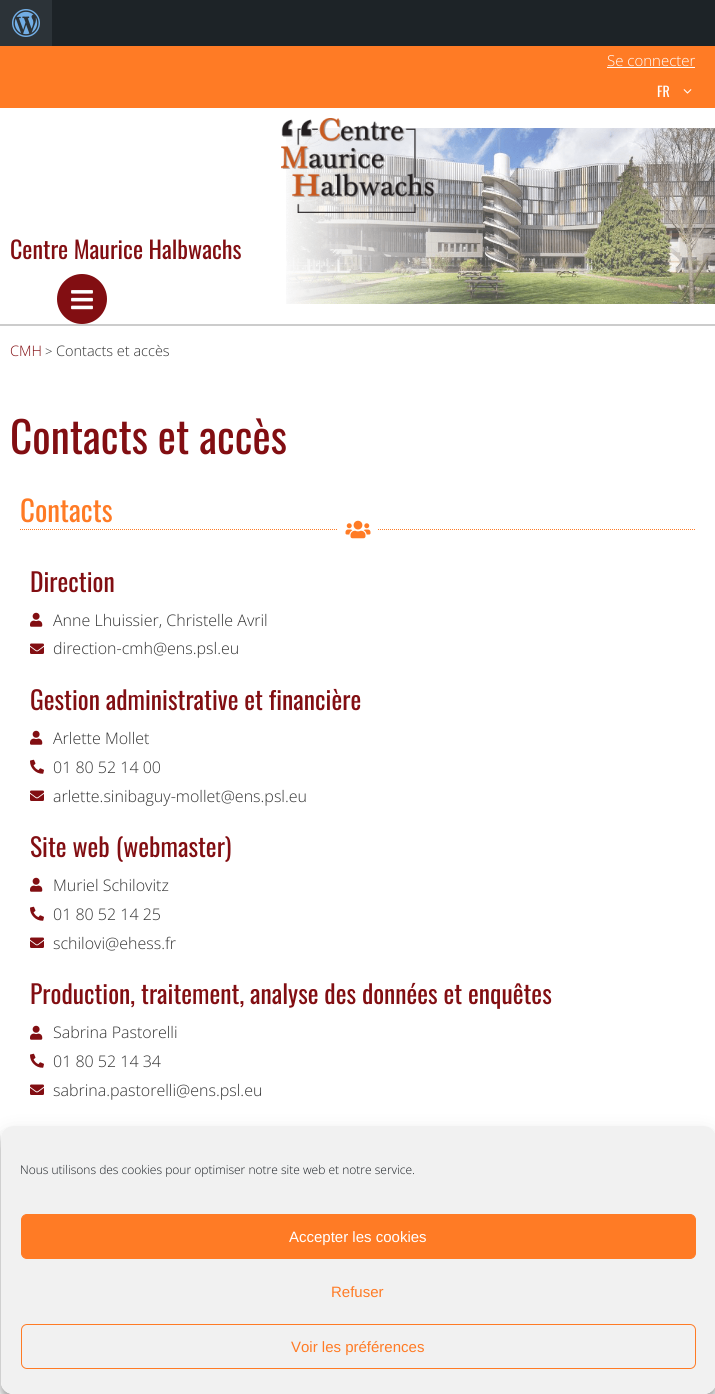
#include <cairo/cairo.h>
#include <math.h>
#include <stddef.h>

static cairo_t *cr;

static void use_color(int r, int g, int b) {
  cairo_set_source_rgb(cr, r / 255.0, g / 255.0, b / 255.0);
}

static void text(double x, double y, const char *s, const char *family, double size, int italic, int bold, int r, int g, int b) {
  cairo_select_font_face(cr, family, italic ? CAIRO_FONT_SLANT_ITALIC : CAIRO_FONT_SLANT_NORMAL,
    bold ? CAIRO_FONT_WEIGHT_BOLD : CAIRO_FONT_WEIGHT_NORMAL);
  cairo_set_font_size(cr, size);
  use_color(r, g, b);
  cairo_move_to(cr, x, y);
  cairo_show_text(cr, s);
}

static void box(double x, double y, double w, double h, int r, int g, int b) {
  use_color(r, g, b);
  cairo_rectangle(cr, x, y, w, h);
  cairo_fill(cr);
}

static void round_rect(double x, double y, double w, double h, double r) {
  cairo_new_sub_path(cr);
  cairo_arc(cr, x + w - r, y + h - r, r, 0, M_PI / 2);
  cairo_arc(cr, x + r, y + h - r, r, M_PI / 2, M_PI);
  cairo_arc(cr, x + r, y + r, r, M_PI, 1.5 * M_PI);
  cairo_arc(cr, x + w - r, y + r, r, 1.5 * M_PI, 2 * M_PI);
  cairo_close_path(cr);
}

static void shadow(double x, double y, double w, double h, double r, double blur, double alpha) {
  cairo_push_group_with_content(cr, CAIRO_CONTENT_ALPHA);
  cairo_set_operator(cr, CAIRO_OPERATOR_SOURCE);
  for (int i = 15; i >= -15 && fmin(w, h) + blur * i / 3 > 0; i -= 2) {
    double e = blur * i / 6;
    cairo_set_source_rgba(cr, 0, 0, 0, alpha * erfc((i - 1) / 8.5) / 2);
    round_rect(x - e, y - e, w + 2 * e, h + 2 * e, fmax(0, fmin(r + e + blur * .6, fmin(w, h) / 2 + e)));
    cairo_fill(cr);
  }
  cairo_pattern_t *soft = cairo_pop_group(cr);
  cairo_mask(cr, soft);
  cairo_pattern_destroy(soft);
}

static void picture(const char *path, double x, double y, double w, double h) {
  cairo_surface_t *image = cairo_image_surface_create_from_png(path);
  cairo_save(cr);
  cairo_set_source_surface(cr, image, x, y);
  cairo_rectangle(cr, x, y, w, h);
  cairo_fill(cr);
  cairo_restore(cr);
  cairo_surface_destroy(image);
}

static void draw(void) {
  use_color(255, 255, 255);
  cairo_paint(cr);
  box(52, 0, 663, 46, 29, 35, 39);
  box(0, 0, 52, 46, 44, 51, 56);
  picture("img_01.png", 12, 9, 28, 28);
  box(0, 46, 715, 62, 255, 123, 37);
  box(607, 67, 88, 1, 255, 255, 255);
  picture("img_02.png", 683, 89, 9, 5);
  picture("img_05.png", 286, 128, 429, 176);
  picture("img_03.png", 281, 118, 154, 95);
  use_color(130, 14, 18);
  cairo_arc(cr, 82, 299, 25, 0, 2 * M_PI);
  cairo_fill(cr);
  picture("img_04.png", 71, 290, 22, 20);
  box(0, 324, 715, 2, 204, 204, 204);
  cairo_new_path(cr);
  cairo_move_to(cr, 20, 529.5);
  cairo_line_to(cr, 338, 529.5);
  use_color(255, 123, 37);
  cairo_set_line_width(cr, 1);
  cairo_set_dash(cr, (double[]){1, 1}, 2, 0);
  cairo_stroke(cr);
  picture("img_06.png", 345, 520, 26, 19);
  cairo_new_path(cr);
  cairo_move_to(cr, 378, 529.5);
  cairo_line_to(cr, 695, 529.5);
  cairo_stroke(cr);
  picture("img_07.png", 30, 612, 13, 15);
  picture("img_08.png", 30, 643, 14, 11);
  picture("img_07.png", 30, 730, 13, 15);
  picture("img_09.png", 30, 759, 14, 15);
  picture("img_08.png", 30, 790, 14, 11);
  picture("img_07.png", 30, 877, 13, 15);
  picture("img_09.png", 30, 906, 14, 15);
  picture("img_08.png", 30, 937, 14, 11);
  picture("img_07.png", 30, 1025, 13, 15);
  picture("img_09.png", 30, 1053, 14, 15);
  picture("img_08.png", 30, 1084, 14, 11);
  cairo_save(cr);
  cairo_set_fill_rule(cr, CAIRO_FILL_RULE_EVEN_ODD);
  cairo_new_path(cr);
  cairo_move_to(cr, 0, 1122);
  cairo_line_to(cr, 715, 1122);
  cairo_line_to(cr, 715, 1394);
  cairo_line_to(cr, 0, 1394);
  cairo_close_path(cr);
  cairo_move_to(cr, 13, 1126);
  cairo_line_to(cr, 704, 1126);
  cairo_curve_to(cr, 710.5, 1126, 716, 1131.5, 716, 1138);
  cairo_line_to(cr, 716, 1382);
  cairo_curve_to(cr, 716, 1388.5, 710.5, 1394, 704, 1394);
  cairo_line_to(cr, 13, 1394);
  cairo_curve_to(cr, 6.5, 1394, 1, 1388.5, 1, 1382);
  cairo_line_to(cr, 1, 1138);
  cairo_curve_to(cr, 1, 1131.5, 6.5, 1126, 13, 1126);
  cairo_close_path(cr);
  cairo_clip(cr);
  use_color(0, 0, 0);
  shadow(1, 1132, 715, 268, 12, 3, 0.23);
  cairo_restore(cr);
  cairo_save(cr);
  cairo_set_fill_rule(cr, CAIRO_FILL_RULE_EVEN_ODD);
  cairo_new_path(cr);
  cairo_move_to(cr, 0, 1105);
  cairo_line_to(cr, 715, 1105);
  cairo_line_to(cr, 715, 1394);
  cairo_line_to(cr, 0, 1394);
  cairo_close_path(cr);
  cairo_move_to(cr, 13, 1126);
  cairo_line_to(cr, 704, 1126);
  cairo_curve_to(cr, 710.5, 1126, 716, 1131.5, 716, 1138);
  cairo_line_to(cr, 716, 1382);
  cairo_curve_to(cr, 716, 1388.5, 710.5, 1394, 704, 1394);
  cairo_line_to(cr, 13, 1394);
  cairo_curve_to(cr, 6.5, 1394, 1, 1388.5, 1, 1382);
  cairo_line_to(cr, 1, 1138);
  cairo_curve_to(cr, 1, 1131.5, 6.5, 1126, 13, 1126);
  cairo_close_path(cr);
  cairo_clip(cr);
  use_color(0, 0, 0);
  shadow(1, 1136, 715, 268, 12, 10, 0.19);
  cairo_restore(cr);
  use_color(241, 241, 241);
  round_rect(1, 1126, 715, 268, 12);
  cairo_fill(cr);
  use_color(255, 123, 37);
  round_rect(21.5, 1214.5, 674, 44, 5.5);
  cairo_fill_preserve(cr);
  cairo_set_dash(cr, NULL, 0, 0);
  cairo_stroke(cr);
  round_rect(21.5, 1324.5, 674, 44, 5.5);
  cairo_stroke(cr);
  text(607, 66, "Se connecter", "Open Sans Light", 15, 0, 0, 255, 255, 255);
  text(657, 97, "FR", "Oswald", 14, 0, 0, 255, 255, 255);
  text(10, 259, "Centre Maurice Halbwachs", "Oswald", 24, 0, 0, 130, 14, 18);
  text(10, 356, "CMH", "Open Sans Light", 14.5, 0, 0, 130, 14, 18);
  text(45, 356, ">", "Open Sans Light", 13, 0, 0, 51, 51, 51);
  text(56, 356, "Contacts et accès", "Open Sans Light", 14.5, 0, 0, 51, 51, 51);
  text(10, 454, "Contacts et accès", "Oswald", 43.25, 0, 0, 130, 14, 18);
  text(20, 522, "Contacts", "Oswald", 29, 0, 0, 255, 123, 37);
  text(30, 592, "Direction", "Oswald", 25.6, 0, 0, 130, 14, 18);
  text(53, 626, "Anne Lhuissier, Christelle Avril", "Open Sans Light", 16, 0, 0, 51, 51, 51);
  text(53, 654, "direction-cmh@ens.psl.eu", "Open Sans Light", 16, 0, 0, 51, 51, 51);
  text(30, 710, "Gestion administrative et financière", "Oswald", 25.6, 0, 0, 130, 14, 18);
  text(53, 744, "Arlette Mollet", "Open Sans Light", 16, 0, 0, 51, 51, 51);
  text(53, 773, "01 80 52 14 00", "Open Sans Light", 16, 0, 0, 51, 51, 51);
  text(53, 802, "arlette.sinibaguy-mollet@ens.psl.eu", "Open Sans Light", 16, 0, 0, 51, 51, 51);
  text(30, 857, "Site web (webmaster)", "Oswald", 25.6, 0, 0, 130, 14, 18);
  text(53, 891, "Muriel Schilovitz", "Open Sans Light", 16, 0, 0, 51, 51, 51);
  text(53, 920, "01 80 52 14 25", "Open Sans Light", 16, 0, 0, 51, 51, 51);
  text(53, 949, "schilovi@ehess.fr", "Open Sans Light", 16, 0, 0, 51, 51, 51);
  text(30, 1004, "Production, traitement, analyse des données et enquêtes", "Oswald", 25.6, 0, 0, 130, 14, 18);
  text(53, 1038, "Sabrina Pastorelli", "Open Sans Light", 16, 0, 0, 51, 51, 51);
  text(53, 1067, "01 80 52 14 34", "Open Sans Light", 16, 0, 0, 51, 51, 51);
  text(53, 1096, "sabrina.pastorelli@ens.psl.eu", "Open Sans Light", 16, 0, 0, 51, 51, 51);
  text(20, 1174, "Nous utilisons des cookies pour optimiser notre site web et notre service.", "Open Sans Light", 12, 0, 0, 25, 30, 35);
  text(289, 1242, "Accepter les cookies", "Liberation Sans", 15, 0, 0, 255, 255, 255);
  text(331, 1297, "Refuser", "Liberation Sans", 15, 0, 0, 255, 123, 37);
  text(291, 1352, "Voir les préférences", "Liberation Sans", 15, 0, 0, 255, 123, 37);
}

int main(void) {
  cairo_surface_t *surface = cairo_image_surface_create(CAIRO_FORMAT_RGB24, 715, 1394);
  cr = cairo_create(surface);
  cairo_font_options_t *options = cairo_font_options_create();
  cairo_font_options_set_hint_metrics(options, CAIRO_HINT_METRICS_OFF);
  cairo_font_options_set_hint_style(options, CAIRO_HINT_STYLE_NONE);
  cairo_set_font_options(cr, options);
  cairo_set_miter_limit(cr, 4);
  draw();
  cairo_surface_write_to_png(surface, "out.png");
  cairo_font_options_destroy(options);
  cairo_destroy(cr);
  cairo_surface_destroy(surface);
  return 0;
}
